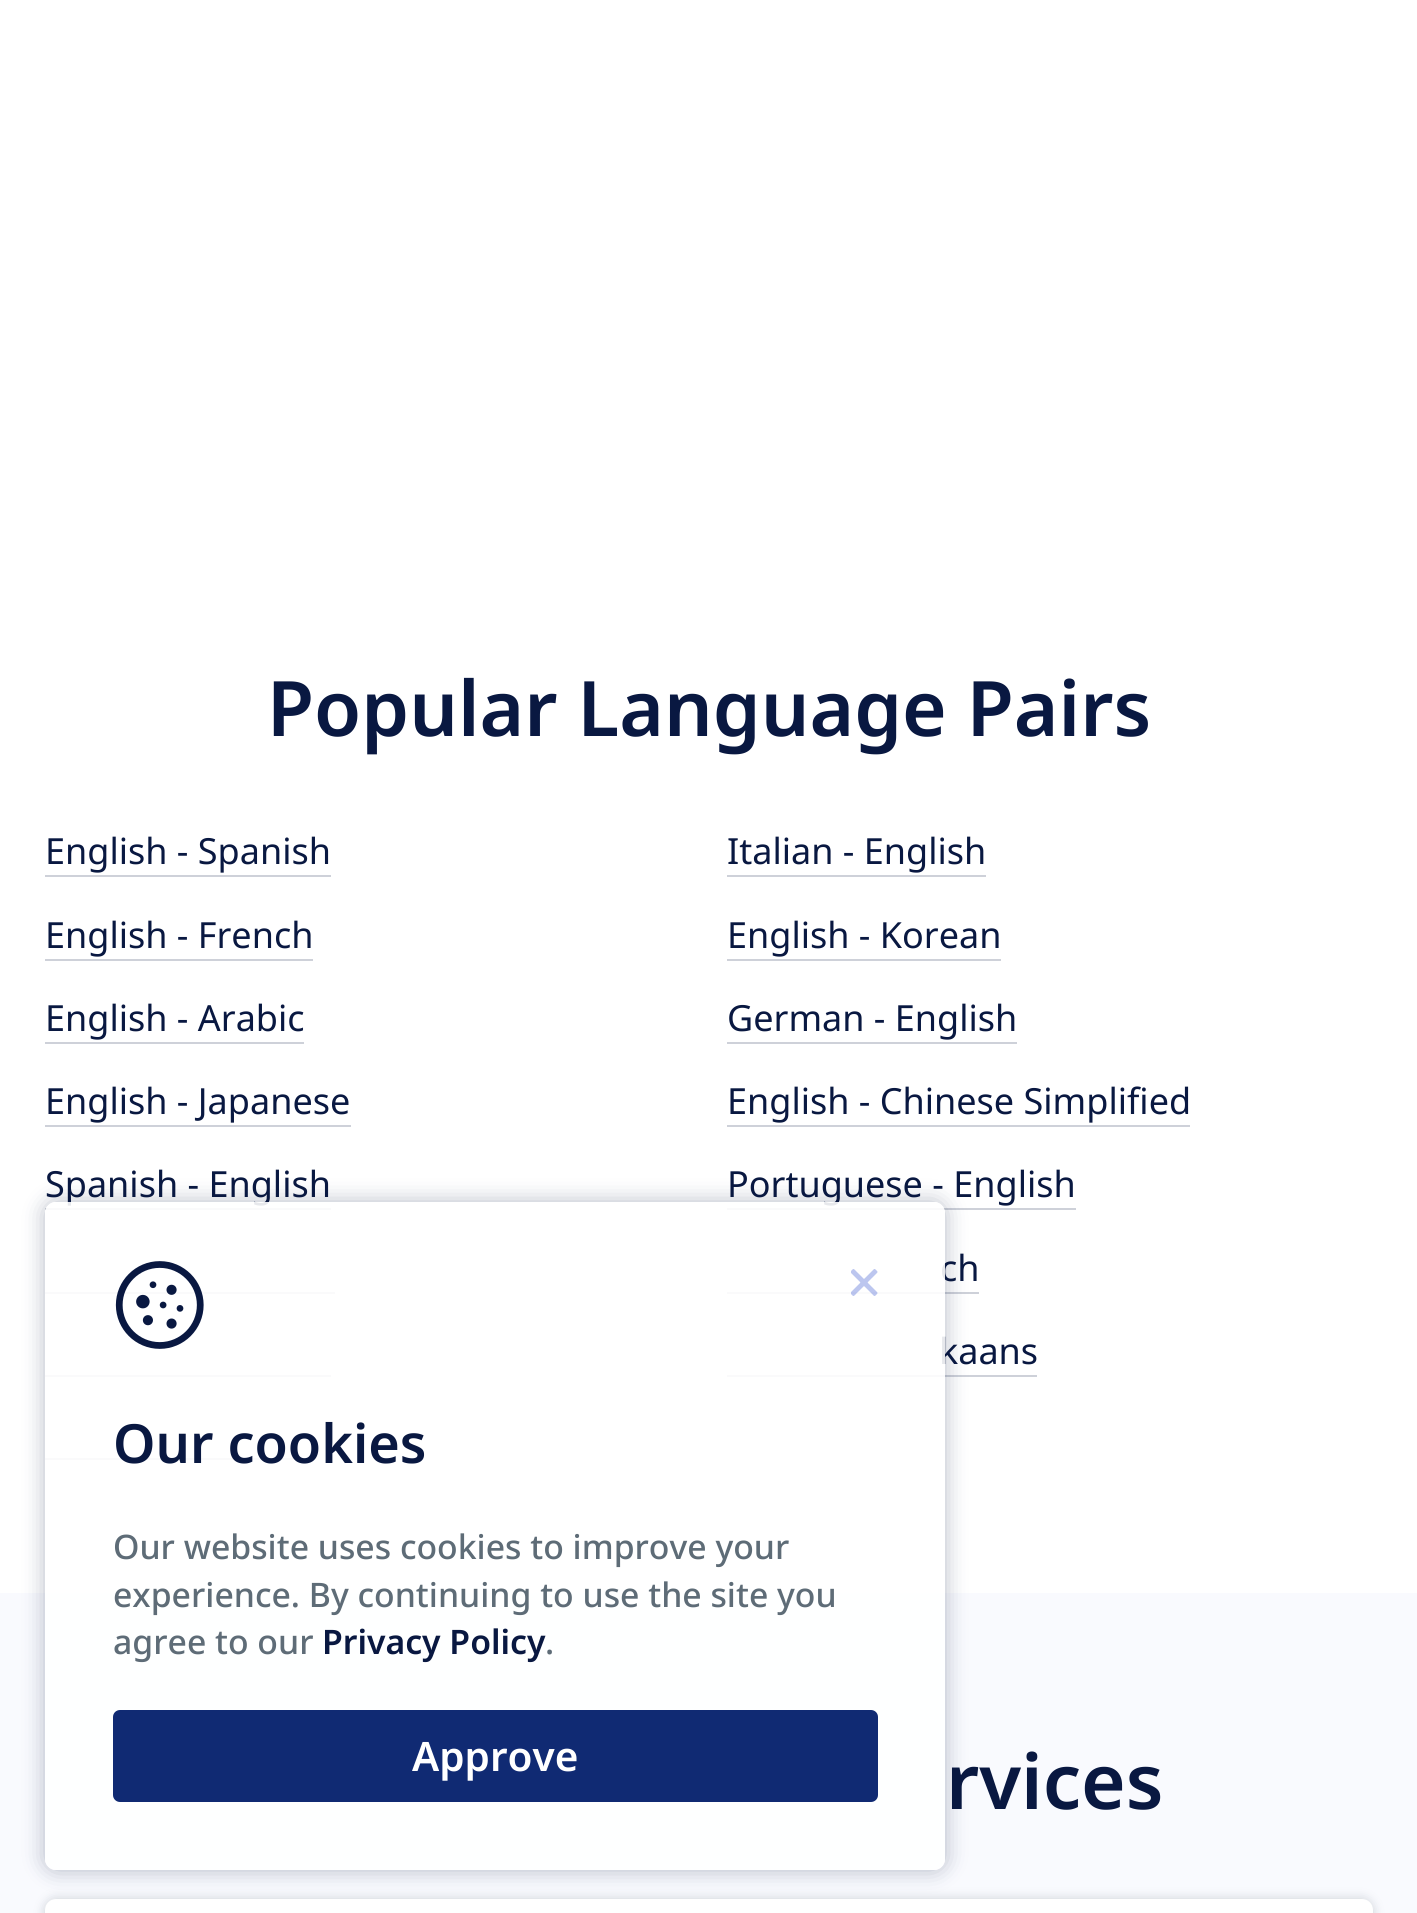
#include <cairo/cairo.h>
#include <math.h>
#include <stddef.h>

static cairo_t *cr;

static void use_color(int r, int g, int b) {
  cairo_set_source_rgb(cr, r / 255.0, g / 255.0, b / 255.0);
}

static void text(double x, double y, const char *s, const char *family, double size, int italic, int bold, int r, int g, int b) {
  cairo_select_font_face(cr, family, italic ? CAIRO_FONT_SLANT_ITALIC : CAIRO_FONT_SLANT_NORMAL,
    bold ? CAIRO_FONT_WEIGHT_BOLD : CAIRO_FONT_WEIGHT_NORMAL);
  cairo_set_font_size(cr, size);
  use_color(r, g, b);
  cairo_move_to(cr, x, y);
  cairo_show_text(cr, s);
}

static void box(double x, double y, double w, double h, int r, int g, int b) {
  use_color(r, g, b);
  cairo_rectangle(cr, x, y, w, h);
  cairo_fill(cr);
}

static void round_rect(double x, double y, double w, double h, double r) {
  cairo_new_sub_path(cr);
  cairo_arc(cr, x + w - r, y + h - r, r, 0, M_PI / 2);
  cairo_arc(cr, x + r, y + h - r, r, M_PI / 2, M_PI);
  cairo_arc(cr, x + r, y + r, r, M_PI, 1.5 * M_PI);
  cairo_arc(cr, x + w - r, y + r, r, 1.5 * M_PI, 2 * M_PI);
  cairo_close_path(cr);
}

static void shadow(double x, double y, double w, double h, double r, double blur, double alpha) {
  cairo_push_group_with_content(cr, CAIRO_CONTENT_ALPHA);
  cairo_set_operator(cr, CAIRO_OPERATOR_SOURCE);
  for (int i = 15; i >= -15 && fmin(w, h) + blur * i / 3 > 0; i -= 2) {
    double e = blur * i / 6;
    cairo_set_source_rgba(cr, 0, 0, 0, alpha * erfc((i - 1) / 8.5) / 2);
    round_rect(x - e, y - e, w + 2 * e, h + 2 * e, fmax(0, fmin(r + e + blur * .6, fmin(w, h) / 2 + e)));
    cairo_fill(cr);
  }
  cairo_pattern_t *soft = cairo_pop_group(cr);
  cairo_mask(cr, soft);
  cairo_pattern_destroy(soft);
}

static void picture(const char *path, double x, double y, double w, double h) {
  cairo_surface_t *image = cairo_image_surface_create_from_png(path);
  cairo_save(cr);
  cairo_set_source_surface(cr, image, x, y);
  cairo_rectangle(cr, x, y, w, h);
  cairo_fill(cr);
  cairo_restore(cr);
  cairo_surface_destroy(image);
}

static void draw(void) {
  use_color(255, 255, 255);
  cairo_paint(cr);
  box(45, 875, 286, 2, 206, 209, 217);
  box(727, 875, 259, 2, 206, 209, 217);
  box(45, 959, 268, 2, 206, 209, 217);
  box(727, 959, 274, 2, 206, 209, 217);
  box(45, 1042, 259, 2, 206, 209, 217);
  box(727, 1042, 290, 2, 206, 209, 217);
  box(45, 1125, 306, 2, 206, 209, 217);
  box(727, 1125, 463, 2, 206, 209, 217);
  box(45, 1208, 286, 2, 206, 209, 217);
  box(727, 1208, 349, 2, 206, 209, 217);
  box(727, 1292, 252, 2, 206, 209, 217);
  box(45, 1292, 290, 2, 206, 209, 217);
  box(727, 1375, 310, 2, 206, 209, 217);
  box(45, 1375, 286, 2, 206, 209, 217);
  box(45, 1458, 259, 2, 206, 209, 217);
  box(0, 1593, 1417, 320, 249, 250, 254);
  use_color(94, 108, 119);
  shadow(45, 1899, 1328, 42, 11, 5.5, 0.3);
  use_color(255, 255, 255);
  round_rect(45, 1899, 1328, 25, 11);
  cairo_fill(cr);
  cairo_save(cr);
  cairo_set_fill_rule(cr, CAIRO_FILL_RULE_EVEN_ODD);
  cairo_new_path(cr);
  cairo_move_to(cr, 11, 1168);
  cairo_line_to(cr, 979, 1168);
  cairo_line_to(cr, 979, 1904);
  cairo_line_to(cr, 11, 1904);
  cairo_close_path(cr);
  cairo_move_to(cr, 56, 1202);
  cairo_line_to(cr, 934, 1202);
  cairo_curve_to(cr, 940, 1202, 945, 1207, 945, 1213);
  cairo_line_to(cr, 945, 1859);
  cairo_curve_to(cr, 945, 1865, 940, 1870, 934, 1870);
  cairo_line_to(cr, 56, 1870);
  cairo_curve_to(cr, 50, 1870, 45, 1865, 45, 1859);
  cairo_line_to(cr, 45, 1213);
  cairo_curve_to(cr, 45, 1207, 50, 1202, 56, 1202);
  cairo_close_path(cr);
  cairo_clip(cr);
  use_color(9, 24, 65);
  shadow(45, 1202, 900, 668, 11, 11, 0.3);
  cairo_restore(cr);
  text(267, 736, "Popular Language Pairs", "Noto Sans SemiBold", 76.5, 0, 0, 9, 24, 65);
  text(45, 864, "English - Spanish", "Noto Sans", 36, 0, 0, 9, 24, 65);
  text(727, 864, "Italian - English", "Noto Sans", 36, 0, 0, 9, 24, 65);
  text(45, 948, "English - French", "Noto Sans", 36, 0, 0, 9, 24, 65);
  text(727, 948, "English - Korean", "Noto Sans", 36, 0, 0, 9, 24, 65);
  text(45, 1031, "English - Arabic", "Noto Sans", 36, 0, 0, 9, 24, 65);
  text(727, 1031, "German - English", "Noto Sans", 36, 0, 0, 9, 24, 65);
  text(45, 1114, "English - Japanese", "Noto Sans", 36, 0, 0, 9, 24, 65);
  text(727, 1114, "English - Chinese Simplified", "Noto Sans", 36, 0, 0, 9, 24, 65);
  text(45, 1197, "Spanish - English", "Noto Sans", 36, 0, 0, 9, 24, 65);
  text(727, 1197, "Portuguese - English", "Noto Sans", 36, 0, 0, 9, 24, 65);
  text(940, 1281, "ch", "Noto Sans", 36, 0, 0, 9, 24, 65);
  text(939, 1364, "kaans", "Noto Sans", 36, 0, 0, 9, 24, 65);
  text(946, 1809, "rvices", "Noto Sans SemiBold", 76.5, 0, 0, 9, 24, 65);
  cairo_set_source_rgba(cr, 1, 1, 1, 0.9);
  round_rect(45, 1202, 900, 668, 11);
  cairo_fill(cr);
  picture("img_01.png", 115, 1261, 89, 88);
  picture("img_02.png", 851, 1269, 27, 27);
  text(113, 1463, "Our cookies", "Noto Sans SemiBold", 54, 0, 0, 9, 24, 65);
  text(113, 1559, "Our website uses cookies to improve your", "Noto Sans Medium", 33.75, 0, 0, 94, 108, 119);
  text(113, 1607, "experience. By continuing to use the site you", "Noto Sans Medium", 33.75, 0, 0, 94, 108, 119);
  text(113, 1654, "agree to our", "Noto Sans Medium", 33.75, 0, 0, 94, 108, 119);
  text(322, 1654, "Privacy Policy", "Noto Sans SemiBold", 33.75, 0, 0, 9, 24, 65);
  text(545, 1654, ".", "Noto Sans Medium", 33.75, 0, 0, 94, 108, 119);
  use_color(16, 42, 115);
  round_rect(113, 1710, 765, 92, 7);
  cairo_fill(cr);
  text(412, 1771, "Approve", "Noto Sans SemiBold", 40.5, 0, 0, 255, 255, 255);
}

int main(void) {
  cairo_surface_t *surface = cairo_image_surface_create(CAIRO_FORMAT_RGB24, 1417, 1913);
  cr = cairo_create(surface);
  cairo_font_options_t *options = cairo_font_options_create();
  cairo_font_options_set_hint_metrics(options, CAIRO_HINT_METRICS_OFF);
  cairo_font_options_set_hint_style(options, CAIRO_HINT_STYLE_NONE);
  cairo_set_font_options(cr, options);
  cairo_set_miter_limit(cr, 4);
  draw();
  cairo_surface_write_to_png(surface, "out.png");
  cairo_font_options_destroy(options);
  cairo_destroy(cr);
  cairo_surface_destroy(surface);
  return 0;
}
